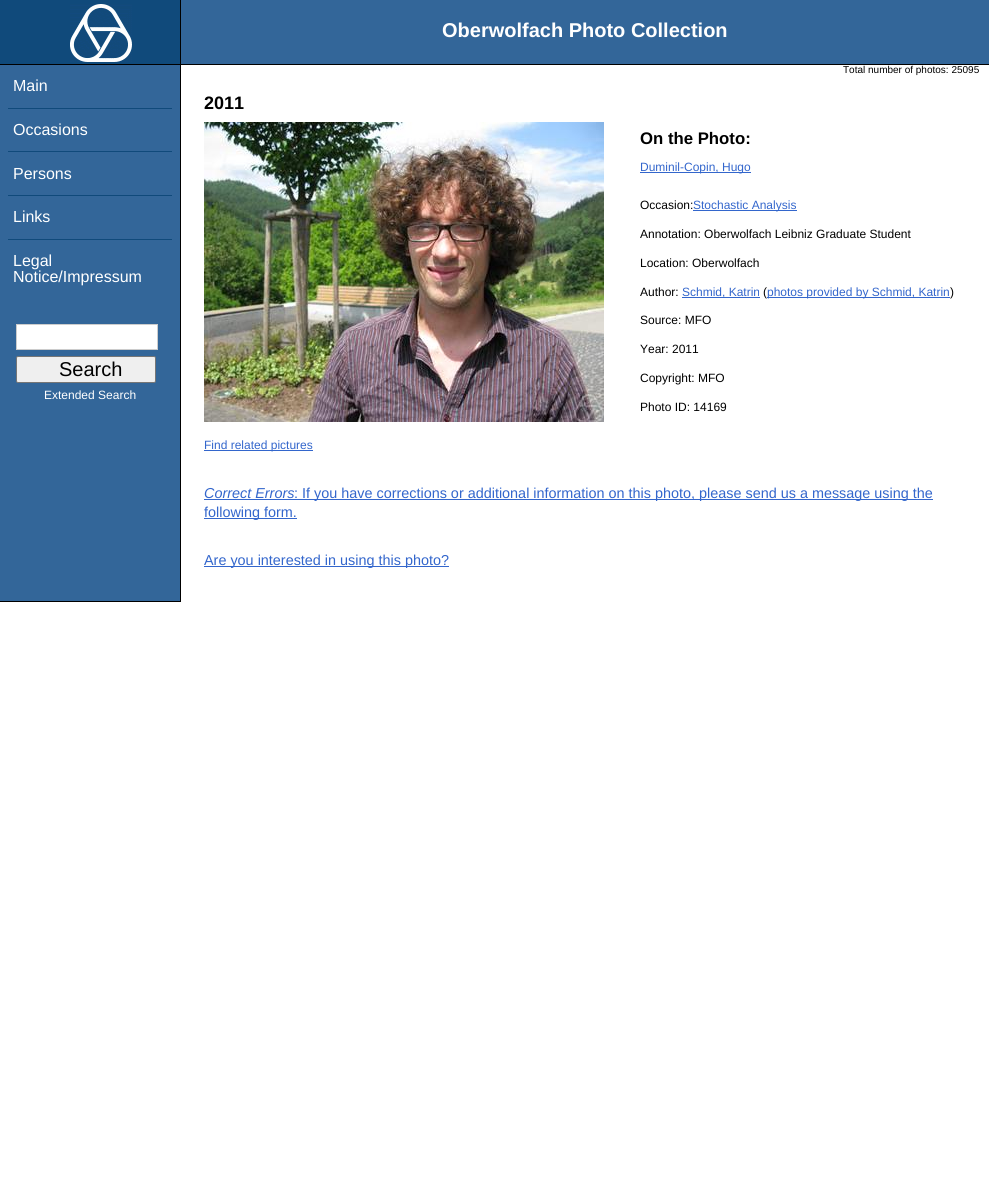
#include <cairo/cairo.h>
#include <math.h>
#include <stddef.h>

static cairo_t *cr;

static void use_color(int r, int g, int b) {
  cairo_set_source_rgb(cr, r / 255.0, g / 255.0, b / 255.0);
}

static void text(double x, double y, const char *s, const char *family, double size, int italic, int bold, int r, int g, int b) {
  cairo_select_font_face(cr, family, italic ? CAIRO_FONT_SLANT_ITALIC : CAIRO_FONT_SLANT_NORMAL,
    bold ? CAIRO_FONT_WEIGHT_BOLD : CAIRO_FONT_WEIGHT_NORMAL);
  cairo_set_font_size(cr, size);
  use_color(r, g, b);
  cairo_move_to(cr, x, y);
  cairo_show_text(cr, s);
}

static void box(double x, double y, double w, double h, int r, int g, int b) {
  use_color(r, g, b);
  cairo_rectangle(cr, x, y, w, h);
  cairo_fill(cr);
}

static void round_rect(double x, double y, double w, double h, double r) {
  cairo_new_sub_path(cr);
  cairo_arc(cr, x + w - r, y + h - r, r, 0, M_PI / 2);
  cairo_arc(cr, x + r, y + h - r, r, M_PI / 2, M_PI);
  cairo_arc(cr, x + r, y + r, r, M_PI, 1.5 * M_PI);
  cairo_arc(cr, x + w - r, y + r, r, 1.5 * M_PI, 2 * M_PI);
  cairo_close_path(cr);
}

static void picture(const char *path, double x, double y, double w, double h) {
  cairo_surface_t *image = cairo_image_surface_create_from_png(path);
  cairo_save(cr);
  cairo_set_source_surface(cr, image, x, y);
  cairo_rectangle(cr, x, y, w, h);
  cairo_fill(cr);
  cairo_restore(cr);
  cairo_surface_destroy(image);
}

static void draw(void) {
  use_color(255, 255, 255);
  cairo_paint(cr);
  box(181, 0, 808, 64, 51, 102, 153);
  box(0, 64, 989, 1, 0, 0, 0);
  box(0, 0, 180, 64, 16, 74, 123);
  box(180, 0, 1, 64, 0, 0, 0);
  picture("img_01.png", 70, 4, 62, 58);
  box(0, 65, 180, 536, 51, 102, 153);
  box(180, 65, 1, 537, 0, 0, 0);
  box(0, 601, 181, 1, 0, 0, 0);
  box(8, 108, 164, 1, 16, 74, 123);
  box(8, 151, 164, 1, 16, 74, 123);
  box(8, 195, 164, 1, 16, 74, 123);
  box(8, 239, 164, 1, 16, 74, 123);
  use_color(255, 255, 255);
  cairo_rectangle(cr, 16.5, 324.5, 141, 25);
  cairo_fill_preserve(cr);
  use_color(204, 204, 204);
  cairo_set_line_width(cr, 1);
  cairo_stroke(cr);
  use_color(239, 239, 239);
  round_rect(16.5, 356.5, 139, 26, 1.5);
  cairo_fill_preserve(cr);
  use_color(118, 118, 118);
  cairo_stroke(cr);
  picture("img_02.png", 204, 122, 400, 300);
  box(640, 172, 111, 1, 51, 102, 204);
  box(693, 210, 104, 1, 51, 102, 204);
  box(682, 297, 78, 1, 51, 102, 204);
  box(204, 450, 109, 1, 51, 102, 204);
  box(204, 499, 729, 1, 51, 102, 204);
  box(204, 518, 93, 1, 51, 102, 204);
  box(204, 566, 245, 1, 51, 102, 204);
  text(442, 37, "Oberwolfach Photo Collection", "Liberation Sans", 20, 0, 1, 255, 255, 255);
  text(843, 73, "Total number of photos: 25095", "Liberation Sans", 10, 0, 0, 0, 0, 0);
  text(13, 91, "Main", "Liberation Sans", 16, 0, 0, 255, 255, 255);
  text(13, 135, "Occasions", "Liberation Sans", 16, 0, 0, 255, 255, 255);
  text(13, 179, "Persons", "Liberation Sans", 16, 0, 0, 255, 255, 255);
  text(13, 222, "Links", "Liberation Sans", 16, 0, 0, 255, 255, 255);
  text(13, 266, "Legal", "Liberation Sans", 16, 0, 0, 255, 255, 255);
  text(13, 282, "Notice/Impressum", "Liberation Sans", 16, 0, 0, 255, 255, 255);
  text(59, 376, "Search", "Liberation Sans", 20, 0, 0, 0, 0, 0);
  text(44, 399, "Extended Search", "Liberation Sans", 12, 0, 0, 255, 255, 255);
  text(204, 109, "2011", "Liberation Sans", 18, 0, 1, 0, 0, 0);
  text(640, 144, "On the Photo:", "Liberation Sans", 16.75, 0, 1, 0, 0, 0);
  text(640, 171, "Duminil-Copin, Hugo", "Liberation Sans", 12, 0, 0, 51, 102, 204);
  text(640, 209, "Occasion:", "Liberation Sans", 12, 0, 0, 0, 0, 0);
  text(693, 209, "Stochastic Analysis", "Liberation Sans", 12, 0, 0, 51, 102, 204);
  text(640, 238, "Annotation: Oberwolfach Leibniz Graduate Student", "Liberation Sans", 12, 0, 0, 0, 0, 0);
  text(640, 267, "Location: Oberwolfach", "Liberation Sans", 12, 0, 0, 0, 0, 0);
  text(640, 296, "Author:", "Liberation Sans", 12, 0, 0, 0, 0, 0);
  text(682, 296, "Schmid, Katrin", "Liberation Sans", 12, 0, 0, 51, 102, 204);
  text(763, 296, "(", "Liberation Sans", 12, 0, 0, 0, 0, 0);
  box(767, 297, 183, 1, 51, 102, 204);
  text(767, 296, "photos provided by Schmid, Katrin", "Liberation Sans", 12, 0, 0, 51, 102, 204);
  text(950, 296, ")", "Liberation Sans", 12, 0, 0, 0, 0, 0);
  text(640, 324, "Source: MFO", "Liberation Sans", 12, 0, 0, 0, 0, 0);
  text(640, 353, "Year: 2011", "Liberation Sans", 12, 0, 0, 0, 0, 0);
  text(640, 382, "Copyright: MFO", "Liberation Sans", 12, 0, 0, 0, 0, 0);
  text(640, 411, "Photo ID: 14169", "Liberation Sans", 12, 0, 0, 0, 0, 0);
  text(204, 449, "Find related pictures", "Liberation Sans", 12, 0, 0, 51, 102, 204);
  text(204, 498, "Correct Errors", "Liberation Sans", 14.4, 1, 0, 51, 102, 204);
  text(294, 498, ": If you have corrections or additional information on this photo, please send us a message using the", "Liberation Sans", 14.4, 0, 0, 51, 102, 204);
  text(204, 517, "following form.", "Liberation Sans", 14.4, 0, 0, 51, 102, 204);
  text(204, 565, "Are you interested in using this photo?", "Liberation Sans", 14.4, 0, 0, 51, 102, 204);
}

int main(void) {
  cairo_surface_t *surface = cairo_image_surface_create(CAIRO_FORMAT_RGB24, 989, 1178);
  cr = cairo_create(surface);
  cairo_font_options_t *options = cairo_font_options_create();
  cairo_font_options_set_hint_metrics(options, CAIRO_HINT_METRICS_OFF);
  cairo_font_options_set_hint_style(options, CAIRO_HINT_STYLE_NONE);
  cairo_set_font_options(cr, options);
  cairo_set_miter_limit(cr, 4);
  draw();
  cairo_surface_write_to_png(surface, "out.png");
  cairo_font_options_destroy(options);
  cairo_destroy(cr);
  cairo_surface_destroy(surface);
  return 0;
}
